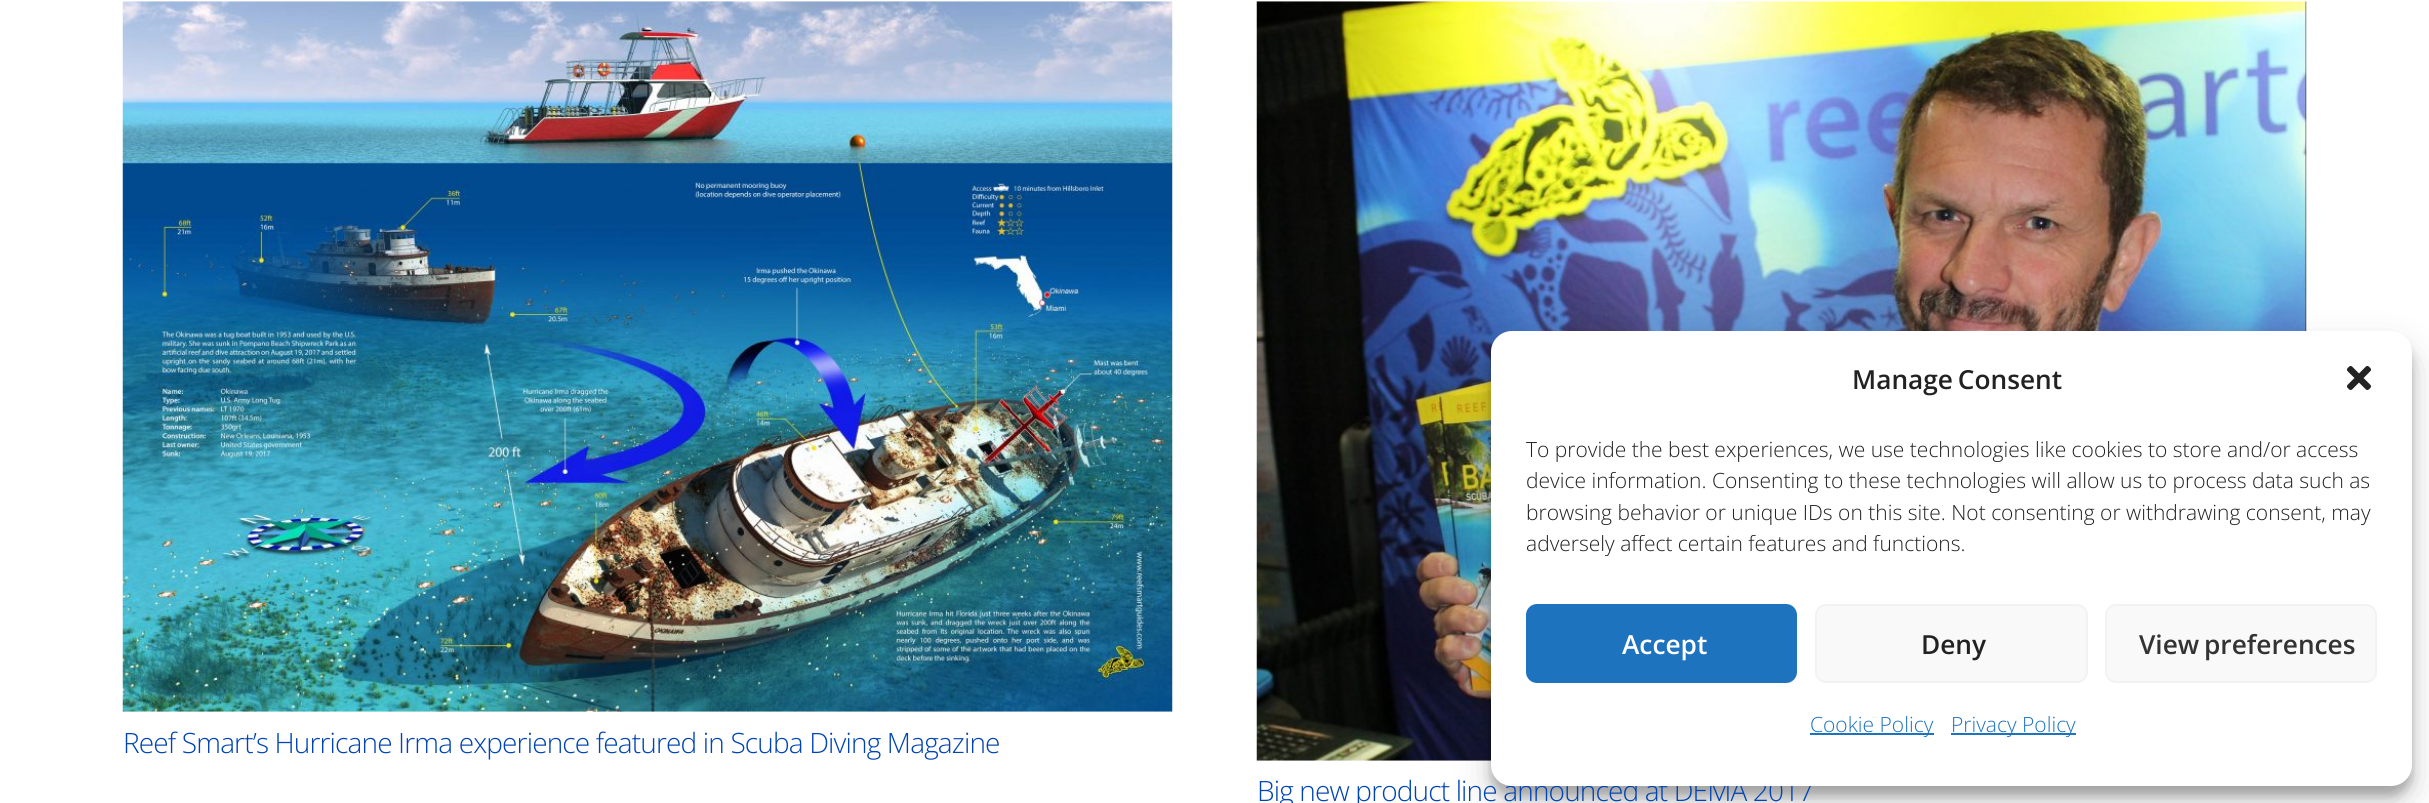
#include <cairo/cairo.h>
#include <math.h>
#include <stddef.h>

static cairo_t *cr;

static void use_color(int r, int g, int b) {
  cairo_set_source_rgb(cr, r / 255.0, g / 255.0, b / 255.0);
}

static void text(double x, double y, const char *s, const char *family, double size, int italic, int bold, int r, int g, int b) {
  cairo_select_font_face(cr, family, italic ? CAIRO_FONT_SLANT_ITALIC : CAIRO_FONT_SLANT_NORMAL,
    bold ? CAIRO_FONT_WEIGHT_BOLD : CAIRO_FONT_WEIGHT_NORMAL);
  cairo_set_font_size(cr, size);
  use_color(r, g, b);
  cairo_move_to(cr, x, y);
  cairo_show_text(cr, s);
}

static void spaced_text(double x, double y, const char *s, double letter, double word) {
  cairo_move_to(cr, x, y);
  while (*s) {
    char ch[5] = {0};
    int n = 0;
    do ch[n++] = *s++; while ((*s & 0xC0) == 0x80);
    cairo_show_text(cr, ch);
    cairo_rel_move_to(cr, letter + word * (*ch == ' '), 0);
  }
}

static void box(double x, double y, double w, double h, int r, int g, int b) {
  use_color(r, g, b);
  cairo_rectangle(cr, x, y, w, h);
  cairo_fill(cr);
}

static void round_rect(double x, double y, double w, double h, double r) {
  cairo_new_sub_path(cr);
  cairo_arc(cr, x + w - r, y + h - r, r, 0, M_PI / 2);
  cairo_arc(cr, x + r, y + h - r, r, M_PI / 2, M_PI);
  cairo_arc(cr, x + r, y + r, r, M_PI, 1.5 * M_PI);
  cairo_arc(cr, x + w - r, y + r, r, 1.5 * M_PI, 2 * M_PI);
  cairo_close_path(cr);
}

static void shadow(double x, double y, double w, double h, double r, double blur, double alpha) {
  cairo_push_group_with_content(cr, CAIRO_CONTENT_ALPHA);
  cairo_set_operator(cr, CAIRO_OPERATOR_SOURCE);
  for (int i = 15; i >= -15 && fmin(w, h) + blur * i / 3 > 0; i -= 2) {
    double e = blur * i / 6;
    cairo_set_source_rgba(cr, 0, 0, 0, alpha * erfc((i - 1) / 8.5) / 2);
    round_rect(x - e, y - e, w + 2 * e, h + 2 * e, fmax(0, fmin(r + e + blur * .6, fmin(w, h) / 2 + e)));
    cairo_fill(cr);
  }
  cairo_pattern_t *soft = cairo_pop_group(cr);
  cairo_mask(cr, soft);
  cairo_pattern_destroy(soft);
}

static void picture(const char *path, double x, double y, double w, double h) {
  cairo_surface_t *image = cairo_image_surface_create_from_png(path);
  cairo_save(cr);
  cairo_set_source_surface(cr, image, x, y);
  cairo_rectangle(cr, x, y, w, h);
  cairo_fill(cr);
  cairo_restore(cr);
  cairo_surface_destroy(image);
}

static void draw(void) {
  use_color(255, 255, 255);
  cairo_paint(cr);
  picture("img_03.png", 1256, 1, 1051, 760);
  use_color(0, 0, 0);
  shadow(1491, 341, 921, 455, 21, 5, 0.23);
  shadow(1491, 348, 921, 455, 21, 17.5, 0.19);
  picture("img_02.png", 122, 1, 1051, 711);
  cairo_select_font_face(cr, "Open Sans Light", CAIRO_FONT_SLANT_NORMAL, CAIRO_FONT_WEIGHT_NORMAL);
  cairo_set_font_size(cr, 28);
  use_color(0, 68, 179);
  spaced_text(123, 753, "Reef Smart’s Hurricane Irma experience featured in Scuba Diving Magazine", -0.85, 0);
  spaced_text(1257, 801, "Big new product line announced at DEMA 2017", -0.85, 0);
  use_color(255, 255, 255);
  round_rect(1491, 331, 921, 455, 21);
  cairo_fill(cr);
  text(1526, 551, "adversely affect certain features and functions.", "Open Sans Light", 21, 0, 0, 34, 34, 34);
  text(1526, 520, "browsing behavior or unique IDs on this site. Not consenting or withdrawing consent, may", "Open Sans Light", 21, 0, 0, 34, 34, 34);
  text(1526, 488, "device information. Consenting to these technologies will allow us to process data such as", "Open Sans Light", 21, 0, 0, 34, 34, 34);
  text(1526, 457, "To provide the best experiences, we use technologies like cookies to store and/or access", "Open Sans Light", 21, 0, 0, 34, 34, 34);
  picture("img_01.png", 2347, 366, 24, 24);
  box(1951, 733, 125, 2, 30, 115, 190);
  text(1951, 732, "Privacy Policy", "Open Sans Light", 21, 0, 0, 30, 115, 190);
  box(1810, 733, 124, 2, 30, 115, 190);
  text(1810, 732, "Cookie Policy", "Open Sans Light", 21, 0, 0, 30, 115, 190);
  use_color(249, 249, 249);
  round_rect(2106, 605, 270, 77, 10);
  cairo_fill_preserve(cr);
  use_color(242, 242, 242);
  cairo_stroke(cr);
  cairo_select_font_face(cr, "Open Sans SemiBold", CAIRO_FONT_SLANT_NORMAL, CAIRO_FONT_WEIGHT_NORMAL);
  cairo_set_font_size(cr, 26.25);
  use_color(51, 51, 51);
  spaced_text(2139, 654, "View preferences", 0, -2);
  use_color(249, 249, 249);
  round_rect(1816, 605, 271, 77, 10);
  cairo_fill_preserve(cr);
  use_color(242, 242, 242);
  cairo_stroke(cr);
  text(1921, 654, "Deny", "Open Sans SemiBold", 26.25, 0, 0, 34, 34, 34);
  use_color(30, 115, 190);
  round_rect(1527, 605, 269, 77, 10);
  cairo_fill_preserve(cr);
  cairo_stroke(cr);
  text(1622, 654, "Accept", "Open Sans SemiBold", 26.25, 0, 0, 255, 255, 255);
  use_color(34, 34, 34);
  spaced_text(1852, 389, "Manage Consent", 0, -2);
}

int main(void) {
  cairo_surface_t *surface = cairo_image_surface_create(CAIRO_FORMAT_RGB24, 2429, 803);
  cr = cairo_create(surface);
  cairo_font_options_t *options = cairo_font_options_create();
  cairo_font_options_set_hint_metrics(options, CAIRO_HINT_METRICS_OFF);
  cairo_font_options_set_hint_style(options, CAIRO_HINT_STYLE_NONE);
  cairo_set_font_options(cr, options);
  cairo_set_miter_limit(cr, 4);
  draw();
  cairo_surface_write_to_png(surface, "out.png");
  cairo_font_options_destroy(options);
  cairo_destroy(cr);
  cairo_surface_destroy(surface);
  return 0;
}
